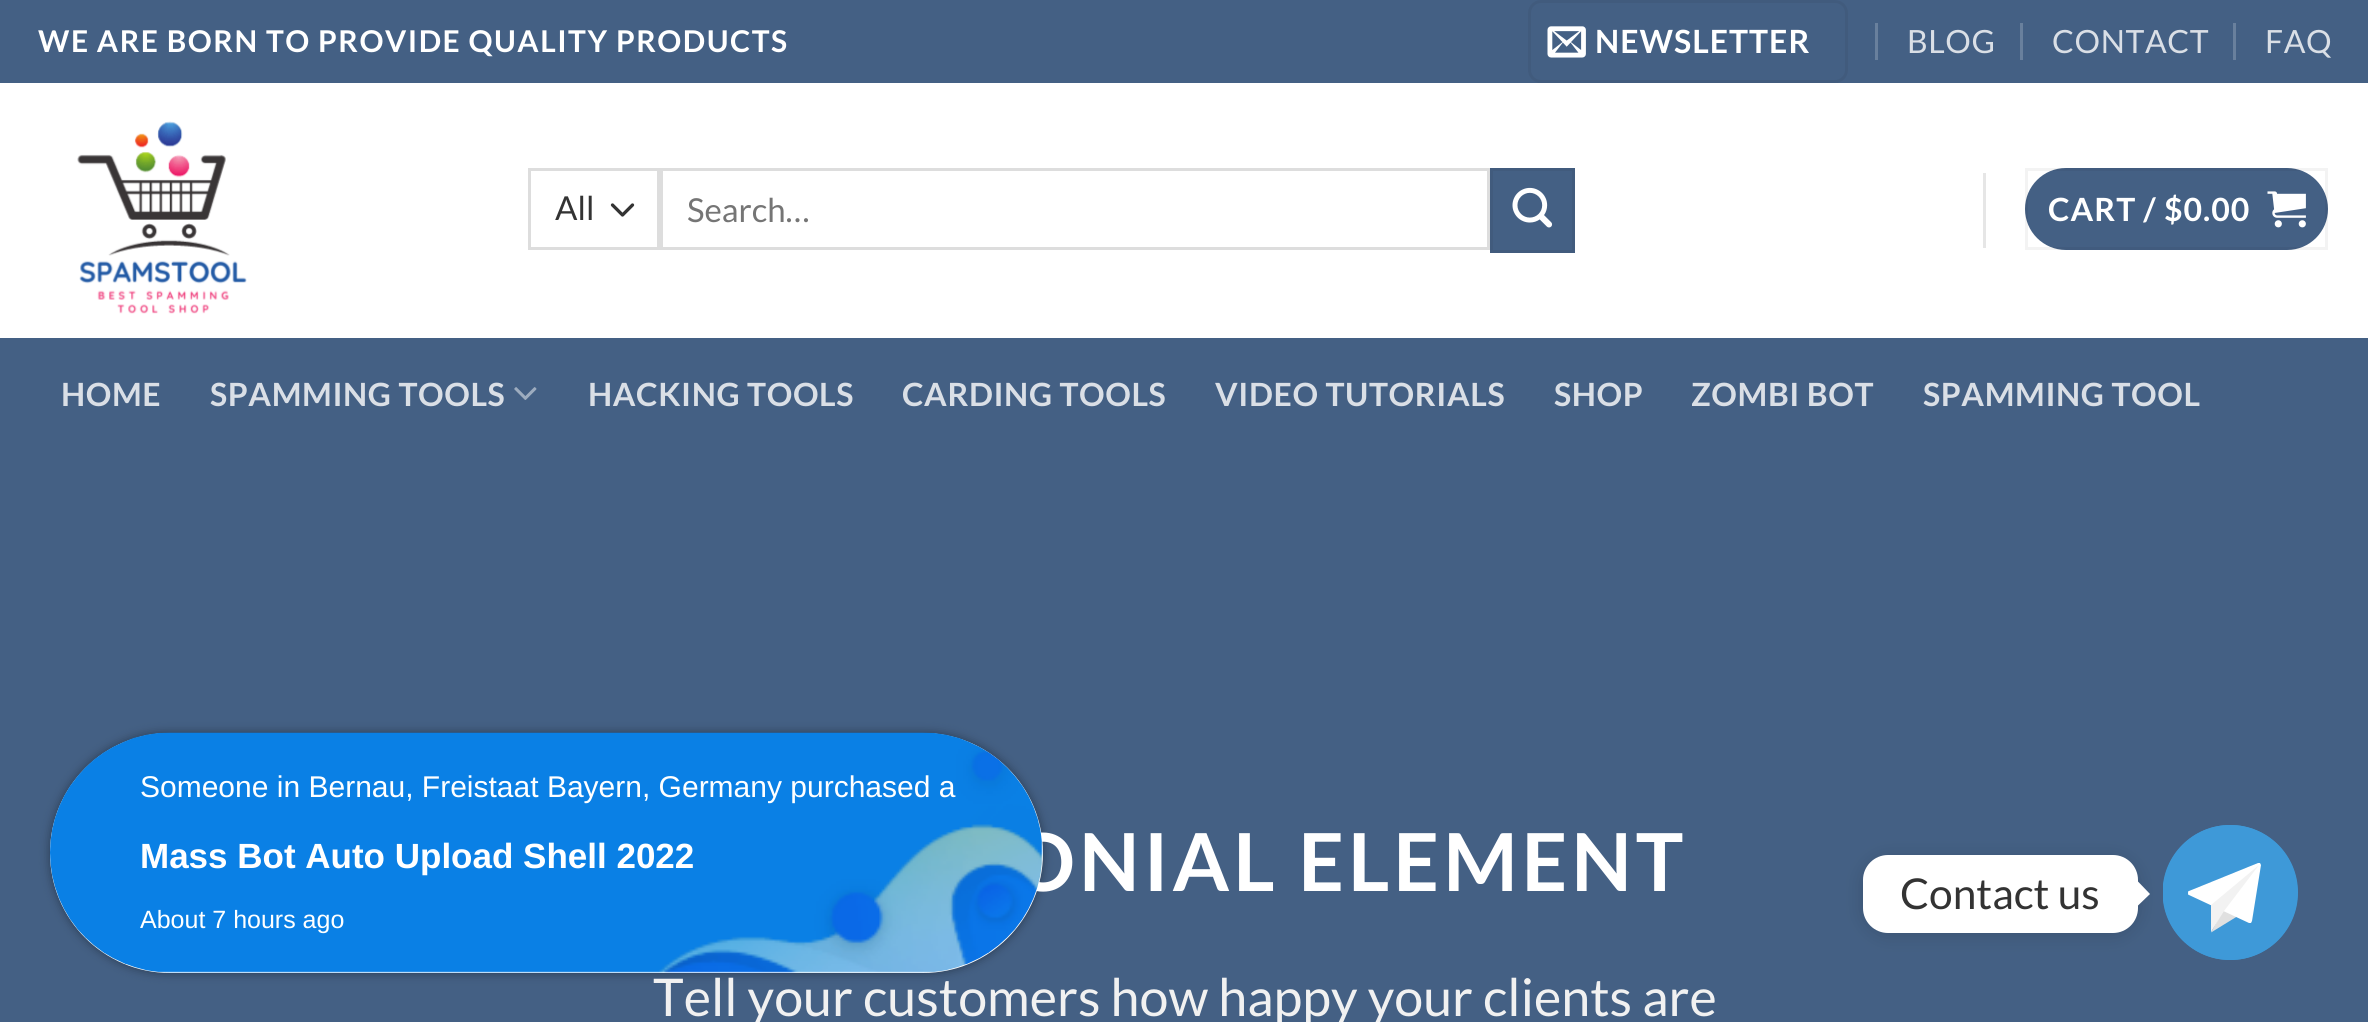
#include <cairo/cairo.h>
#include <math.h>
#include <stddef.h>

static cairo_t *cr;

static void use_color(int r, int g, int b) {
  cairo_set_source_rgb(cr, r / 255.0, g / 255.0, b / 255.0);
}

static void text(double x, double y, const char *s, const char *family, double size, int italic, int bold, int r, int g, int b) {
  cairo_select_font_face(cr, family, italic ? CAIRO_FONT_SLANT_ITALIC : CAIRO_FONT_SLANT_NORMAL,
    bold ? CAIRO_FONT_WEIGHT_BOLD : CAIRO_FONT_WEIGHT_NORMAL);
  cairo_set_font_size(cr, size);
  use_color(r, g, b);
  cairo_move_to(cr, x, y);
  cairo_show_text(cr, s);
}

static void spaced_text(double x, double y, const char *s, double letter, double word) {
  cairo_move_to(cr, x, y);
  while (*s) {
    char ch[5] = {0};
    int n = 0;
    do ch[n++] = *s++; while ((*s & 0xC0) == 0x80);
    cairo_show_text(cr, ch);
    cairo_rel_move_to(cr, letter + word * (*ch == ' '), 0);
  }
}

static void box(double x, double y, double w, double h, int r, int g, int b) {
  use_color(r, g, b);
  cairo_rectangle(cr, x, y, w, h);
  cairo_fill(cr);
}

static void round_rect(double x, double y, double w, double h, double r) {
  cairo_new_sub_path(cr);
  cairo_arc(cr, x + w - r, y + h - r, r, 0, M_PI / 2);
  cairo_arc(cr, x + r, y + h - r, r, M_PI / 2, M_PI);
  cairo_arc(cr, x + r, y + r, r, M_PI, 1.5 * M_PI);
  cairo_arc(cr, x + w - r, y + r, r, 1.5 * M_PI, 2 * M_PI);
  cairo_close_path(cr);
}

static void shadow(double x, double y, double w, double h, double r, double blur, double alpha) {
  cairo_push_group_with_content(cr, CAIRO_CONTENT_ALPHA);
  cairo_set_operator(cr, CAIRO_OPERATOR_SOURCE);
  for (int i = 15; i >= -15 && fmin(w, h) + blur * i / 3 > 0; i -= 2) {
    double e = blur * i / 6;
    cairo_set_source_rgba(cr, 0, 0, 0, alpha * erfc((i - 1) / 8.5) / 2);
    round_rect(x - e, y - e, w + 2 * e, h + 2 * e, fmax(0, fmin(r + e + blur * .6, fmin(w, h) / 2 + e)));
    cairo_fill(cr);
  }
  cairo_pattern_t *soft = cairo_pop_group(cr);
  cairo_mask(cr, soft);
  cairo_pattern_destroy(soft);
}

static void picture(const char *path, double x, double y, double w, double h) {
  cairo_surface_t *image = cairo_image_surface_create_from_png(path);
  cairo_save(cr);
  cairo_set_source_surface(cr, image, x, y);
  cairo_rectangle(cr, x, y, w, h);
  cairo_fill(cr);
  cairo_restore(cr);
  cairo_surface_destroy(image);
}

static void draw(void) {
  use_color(255, 255, 255);
  cairo_paint(cr);
  box(0, 0, 2368, 83, 68, 96, 132);
  round_rect(1529.5, 1.5, 317, 80, 11.5);
  use_color(65, 91, 125);
  cairo_set_line_width(cr, 3);
  cairo_stroke(cr);
  picture("img_01.png", 1547, 26, 39, 32);
  box(1875, 23, 3, 37, 105, 128, 157);
  box(2020, 23, 3, 37, 105, 128, 157);
  box(2233, 23, 3, 37, 105, 128, 157);
  picture("img_02.png", 77, 121, 170, 193);
  cairo_new_path(cr);
  cairo_move_to(cr, 612.5, 205);
  cairo_line_to(cr, 622.5, 215);
  cairo_line_to(cr, 632.5, 205);
  use_color(51, 51, 51);
  cairo_set_line_width(cr, 3.3);
  cairo_set_line_cap(cr, CAIRO_LINE_CAP_ROUND);
  cairo_set_line_join(cr, CAIRO_LINE_JOIN_ROUND);
  cairo_stroke(cr);
  cairo_rectangle(cr, 529.5, 169.5, 129, 79);
  use_color(221, 221, 221);
  cairo_set_line_width(cr, 3);
  cairo_set_line_cap(cr, CAIRO_LINE_CAP_BUTT);
  cairo_set_line_join(cr, CAIRO_LINE_JOIN_MITER);
  cairo_stroke(cr);
  cairo_rectangle(cr, 661.5, 169.5, 827, 79);
  cairo_stroke(cr);
  use_color(68, 96, 132);
  cairo_rectangle(cr, 1491.5, 169.5, 82, 82);
  cairo_fill_preserve(cr);
  use_color(65, 91, 125);
  cairo_stroke(cr);
  picture("img_03.png", 1512, 187, 41, 41);
  box(1983, 173, 3, 75, 230, 230, 230);
  use_color(68, 96, 132);
  round_rect(2025, 168, 303, 82, 41);
  cairo_fill(cr);
  cairo_rectangle(cr, 2026.5, 169.5, 300, 79);
  cairo_set_source_rgba(cr, 0, 0, 0, 0.05);
  cairo_stroke(cr);
  picture("img_04.png", 2267, 191, 39, 37);
  box(0, 338, 2368, 684, 68, 96, 132);
  picture("img_05.png", 514, 387, 23, 13);
  use_color(0, 0, 0);
  shadow(50, 733, 993, 240, 120, 5, 0.4);
  use_color(255, 255, 255);
  round_rect(50, 733, 993, 240, 120);
  cairo_fill(cr);
  use_color(62, 153, 216);
  cairo_arc(cr, 2230.5, 892.5, 67.5, 0, 2 * M_PI);
  cairo_fill(cr);
  cairo_save(cr);
  cairo_rectangle(cr, 2163, 825, 135, 135);
  cairo_clip(cr);
  cairo_arc(cr, 2230, 892.5, 67.5, 0, 2 * M_PI);
  cairo_fill(cr);
  cairo_restore(cr);
  use_color(0, 0, 0);
  shadow(1863, 858, 275, 77, 25, 9.5, 0.15);
  use_color(255, 255, 255);
  round_rect(1863, 855, 275, 78, 25);
  cairo_fill(cr);
  cairo_new_path(cr);
  cairo_move_to(cr, 2137.5, 906);
  cairo_line_to(cr, 2137.5, 881);
  cairo_line_to(cr, 2150, 894);
  cairo_close_path(cr);
  cairo_fill(cr);
  use_color(224, 224, 224);
  cairo_new_path(cr);
  cairo_move_to(cr, 2223, 910);
  cairo_line_to(cr, 2211, 932.5);
  cairo_line_to(cr, 2237, 916.5);
  cairo_close_path(cr);
  cairo_fill(cr);
  use_color(255, 255, 255);
  cairo_new_path(cr);
  cairo_move_to(cr, 2260, 863);
  cairo_curve_to(cr, 2260, 863, 2259, 863, 2258, 863);
  cairo_line_to(cr, 2189, 891);
  cairo_curve_to(cr, 2188, 891, 2188, 892, 2188, 893);
  cairo_curve_to(cr, 2188, 894, 2188, 895, 2189, 895);
  cairo_line_to(cr, 2249, 923);
  cairo_line_to(cr, 2250, 923);
  cairo_curve_to(cr, 2250, 923, 2251, 923, 2251, 923);
  cairo_line_to(cr, 2252, 921);
  cairo_line_to(cr, 2261, 865);
  cairo_close_path(cr);
  cairo_fill(cr);
  use_color(242, 242, 242);
  cairo_new_path(cr);
  cairo_move_to(cr, 2259, 865);
  cairo_line_to(cr, 2211, 905);
  cairo_line_to(cr, 2211, 932);
  cairo_line_to(cr, 2224, 911);
  cairo_close_path(cr);
  cairo_fill(cr);
  cairo_select_font_face(cr, "Lato", CAIRO_FONT_SLANT_NORMAL, CAIRO_FONT_WEIGHT_BOLD);
  cairo_set_font_size(cr, 30);
  use_color(255, 255, 255);
  spaced_text(38, 52, "WE ARE BORN TO PROVIDE QUALITY PRODUCTS", 1.5, 0);
  cairo_set_font_size(cr, 32);
  spaced_text(1595, 53, "NEWSLETTER", 1, 0);
  cairo_select_font_face(cr, "Lato", CAIRO_FONT_SLANT_NORMAL, CAIRO_FONT_WEIGHT_NORMAL);
  use_color(218, 223, 230);
  spaced_text(1907, 53, "BLOG", 0.6, 0);
  spaced_text(2052, 53, "CONTACT", 0.6, 0);
  spaced_text(2265, 53, "FAQ", 0.6, 0);
  text(555, 220, "All", "Lato", 33, 0, 0, 51, 51, 51);
  text(687, 222, "Search…", "Lato", 33, 0, 0, 117, 117, 117);
  cairo_select_font_face(cr, "Lato", CAIRO_FONT_SLANT_NORMAL, CAIRO_FONT_WEIGHT_BOLD);
  cairo_set_font_size(cr, 32);
  use_color(255, 255, 255);
  spaced_text(2048, 221, "CART / $0.00", 1, 0);
  use_color(218, 223, 230);
  spaced_text(61, 406, "HOME", 0.6, 0);
  spaced_text(210, 406, "SPAMMING TOOLS", 0.6, 0);
  spaced_text(588, 406, "HACKING TOOLS", 0.6, 0);
  spaced_text(902, 406, "CARDING TOOLS", 0.6, 0);
  spaced_text(1215, 406, "VIDEO TUTORIALS", 0.6, 0);
  spaced_text(1554, 406, "SHOP", 0.6, 0);
  spaced_text(1691, 406, "ZOMBI BOT", 0.6, 0);
  spaced_text(1923, 406, "SPAMMING TOOL", 0.6, 0);
  cairo_set_font_size(cr, 80);
  use_color(255, 255, 255);
  spaced_text(1011, 891, "ONIAL ELEMENT", 4, 0);
  text(653, 1016, "Tell your customers how happy your clients are", "Lato", 52, 0, 0, 241, 241, 241);
  picture("img_06.png", 50, 732, 993, 241);
  text(140, 797, "Someone in Bernau, Freistaat Bayern, Germany purchased a", "Liberation Sans", 30, 0, 0, 255, 255, 255);
  text(140, 868, "Mass Bot Auto Upload Shell 2022", "Liberation Sans", 35, 0, 1, 255, 255, 255);
  text(140, 928, "About 7 hours ago", "Liberation Sans", 25, 0, 0, 255, 255, 255);
  text(1900, 909, "Contact us", "Lato", 42.5, 0, 0, 51, 51, 51);
}

int main(void) {
  cairo_surface_t *surface = cairo_image_surface_create(CAIRO_FORMAT_RGB24, 2368, 1022);
  cr = cairo_create(surface);
  cairo_font_options_t *options = cairo_font_options_create();
  cairo_font_options_set_hint_metrics(options, CAIRO_HINT_METRICS_OFF);
  cairo_font_options_set_hint_style(options, CAIRO_HINT_STYLE_NONE);
  cairo_set_font_options(cr, options);
  cairo_set_miter_limit(cr, 4);
  draw();
  cairo_surface_write_to_png(surface, "out.png");
  cairo_font_options_destroy(options);
  cairo_destroy(cr);
  cairo_surface_destroy(surface);
  return 0;
}
